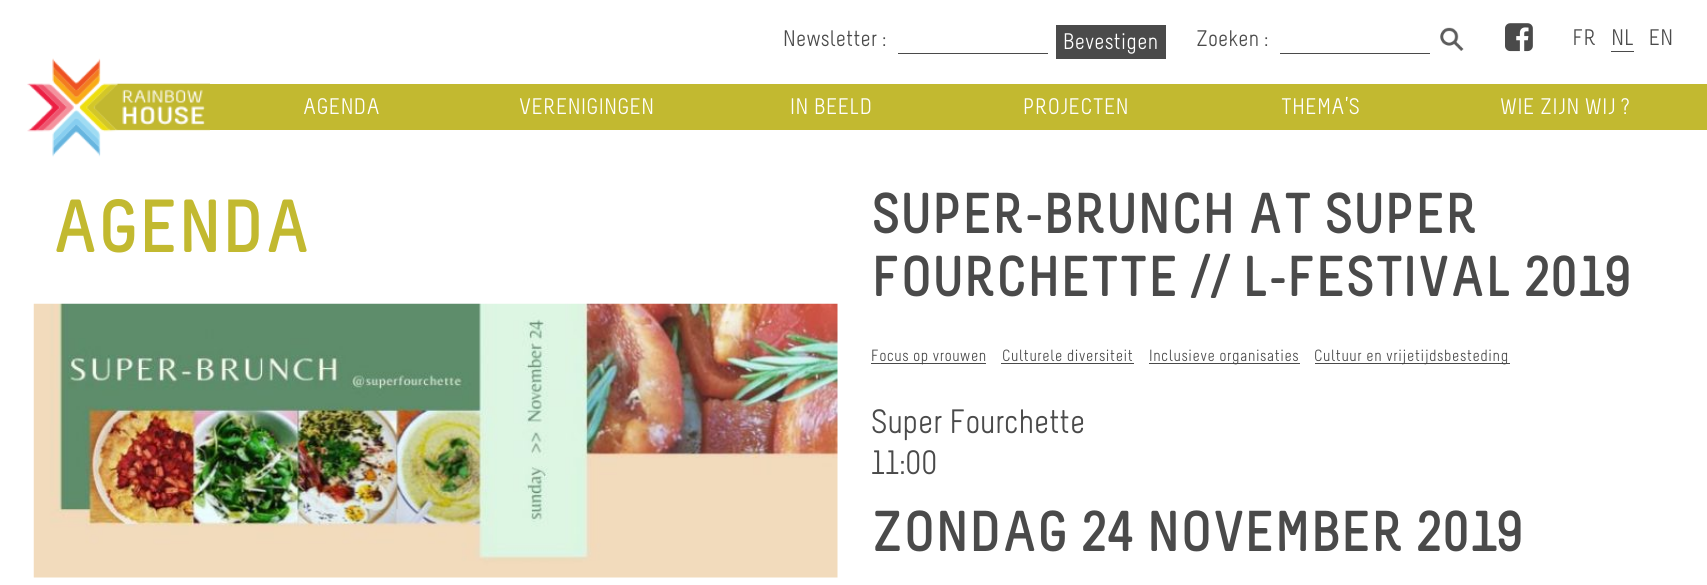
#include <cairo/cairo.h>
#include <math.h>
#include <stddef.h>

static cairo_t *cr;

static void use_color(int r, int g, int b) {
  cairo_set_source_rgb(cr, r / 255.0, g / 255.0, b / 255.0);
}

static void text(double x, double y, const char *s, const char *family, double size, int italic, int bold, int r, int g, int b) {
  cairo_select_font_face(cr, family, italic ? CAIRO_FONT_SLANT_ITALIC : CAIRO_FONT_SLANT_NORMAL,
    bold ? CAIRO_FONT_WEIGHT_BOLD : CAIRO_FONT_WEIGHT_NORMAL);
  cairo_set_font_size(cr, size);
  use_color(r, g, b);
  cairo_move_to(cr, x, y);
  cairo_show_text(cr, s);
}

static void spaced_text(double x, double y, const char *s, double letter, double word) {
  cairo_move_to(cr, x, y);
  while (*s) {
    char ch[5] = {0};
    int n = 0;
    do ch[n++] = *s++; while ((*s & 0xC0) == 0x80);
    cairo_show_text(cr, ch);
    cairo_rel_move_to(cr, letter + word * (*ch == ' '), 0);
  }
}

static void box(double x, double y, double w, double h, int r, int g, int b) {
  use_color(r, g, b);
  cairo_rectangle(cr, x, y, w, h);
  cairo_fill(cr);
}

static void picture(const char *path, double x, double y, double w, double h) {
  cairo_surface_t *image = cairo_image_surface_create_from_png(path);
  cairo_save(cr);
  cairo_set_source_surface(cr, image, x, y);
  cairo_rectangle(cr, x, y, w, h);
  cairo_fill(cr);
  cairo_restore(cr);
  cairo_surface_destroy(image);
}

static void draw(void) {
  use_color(255, 255, 255);
  cairo_paint(cr);
  box(898, 53, 150, 1, 74, 74, 74);
  box(1056, 25, 110, 34, 74, 74, 74);
  picture("img_01.png", 1440, 27, 24, 24);
  box(1280, 53, 150, 1, 74, 74, 74);
  picture("img_02.png", 1505, 23, 28, 29);
  picture("img_03.png", 1574, 29, 21, 16);
  box(1611, 51, 23, 1, 74, 74, 74);
  picture("img_04.png", 1613, 29, 20, 16);
  picture("img_05.png", 1650, 29, 22, 16);
  picture("img_06.png", 27, 58, 183, 99);
  box(210, 84, 1497, 46, 194, 185, 48);
  picture("img_07.png", 33, 303, 805, 275);
  box(871, 363, 115, 1, 74, 74, 74);
  box(1001, 363, 133, 1, 74, 74, 74);
  box(1149, 363, 151, 1, 74, 74, 74);
  box(1315, 363, 195, 1, 74, 74, 74);
  cairo_select_font_face(cr, "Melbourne", CAIRO_FONT_SLANT_NORMAL, CAIRO_FONT_WEIGHT_NORMAL);
  cairo_set_font_size(cr, 22.5);
  spaced_text(783, 46, "Newsletter :", 0.25, 0);
  use_color(255, 255, 255);
  spaced_text(1063, 49, "Bevestigen", 0.25, 0);
  use_color(74, 74, 74);
  spaced_text(1196, 46, "Zoeken :", 0.25, 0);
  use_color(255, 255, 255);
  spaced_text(303, 114, "AGENDA", 0.5, 0);
  spaced_text(519, 114, "VERENIGINGEN", 0.5, 0);
  spaced_text(790, 114, "IN BEELD", 0.5, 0);
  spaced_text(1023, 114, "PROJECTEN", 0.5, 0);
  spaced_text(1281, 114, "THEMA’S", 0.5, 0);
  spaced_text(1500, 114, "WIE ZIJN WIJ ?", 0.5, 0);
  text(51, 252, "AGENDA", "Melbourne", 75, 0, 1, 194, 185, 48);
  text(871, 233, "SUPER-BRUNCH AT SUPER", "Melbourne", 57.5, 0, 1, 74, 74, 74);
  text(871, 296, "FOURCHETTE // L-FESTIVAL 2019", "Melbourne", 57.5, 0, 1, 74, 74, 74);
  cairo_select_font_face(cr, "Melbourne", CAIRO_FONT_SLANT_NORMAL, CAIRO_FONT_WEIGHT_NORMAL);
  cairo_set_font_size(cr, 16.25);
  spaced_text(871, 361, "Focus op vrouwen", 0.6, 0);
  spaced_text(1002, 361, "Culturele diversiteit", 0.6, 0);
  spaced_text(1149, 361, "Inclusieve organisaties", 0.6, 0);
  spaced_text(1314, 361, "Cultuur en vrijetijdsbesteding", 0.6, 0);
  text(871, 433, "Super Fourchette", "Melbourne", 33.75, 0, 0, 74, 74, 74);
  text(871, 474, "11:00", "Melbourne", 33.75, 0, 0, 74, 74, 74);
  text(871, 551, "ZONDAG 24 NOVEMBER 2019", "Melbourne", 57.5, 0, 1, 74, 74, 74);
}

int main(void) {
  cairo_surface_t *surface = cairo_image_surface_create(CAIRO_FORMAT_RGB24, 1707, 585);
  cr = cairo_create(surface);
  cairo_font_options_t *options = cairo_font_options_create();
  cairo_font_options_set_hint_metrics(options, CAIRO_HINT_METRICS_OFF);
  cairo_font_options_set_hint_style(options, CAIRO_HINT_STYLE_NONE);
  cairo_set_font_options(cr, options);
  cairo_set_miter_limit(cr, 4);
  draw();
  cairo_surface_write_to_png(surface, "out.png");
  cairo_font_options_destroy(options);
  cairo_destroy(cr);
  cairo_surface_destroy(surface);
  return 0;
}
